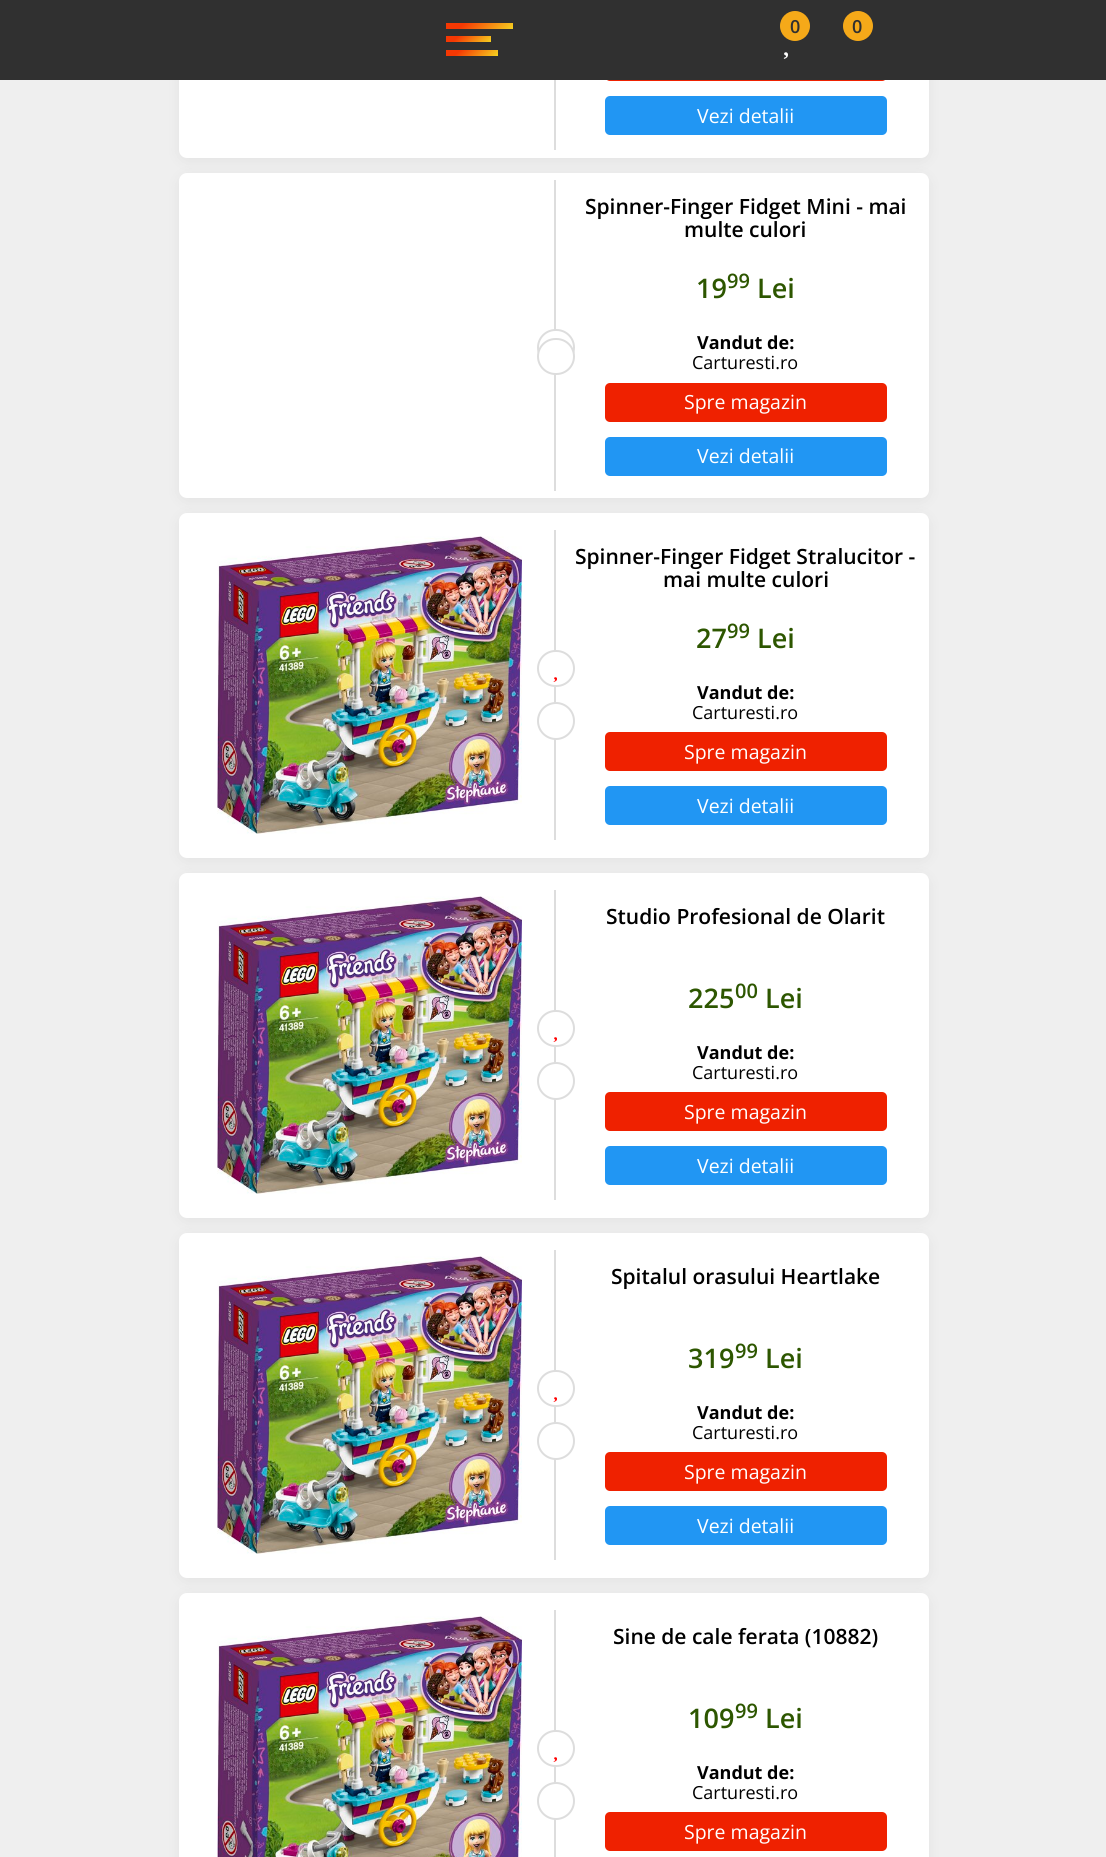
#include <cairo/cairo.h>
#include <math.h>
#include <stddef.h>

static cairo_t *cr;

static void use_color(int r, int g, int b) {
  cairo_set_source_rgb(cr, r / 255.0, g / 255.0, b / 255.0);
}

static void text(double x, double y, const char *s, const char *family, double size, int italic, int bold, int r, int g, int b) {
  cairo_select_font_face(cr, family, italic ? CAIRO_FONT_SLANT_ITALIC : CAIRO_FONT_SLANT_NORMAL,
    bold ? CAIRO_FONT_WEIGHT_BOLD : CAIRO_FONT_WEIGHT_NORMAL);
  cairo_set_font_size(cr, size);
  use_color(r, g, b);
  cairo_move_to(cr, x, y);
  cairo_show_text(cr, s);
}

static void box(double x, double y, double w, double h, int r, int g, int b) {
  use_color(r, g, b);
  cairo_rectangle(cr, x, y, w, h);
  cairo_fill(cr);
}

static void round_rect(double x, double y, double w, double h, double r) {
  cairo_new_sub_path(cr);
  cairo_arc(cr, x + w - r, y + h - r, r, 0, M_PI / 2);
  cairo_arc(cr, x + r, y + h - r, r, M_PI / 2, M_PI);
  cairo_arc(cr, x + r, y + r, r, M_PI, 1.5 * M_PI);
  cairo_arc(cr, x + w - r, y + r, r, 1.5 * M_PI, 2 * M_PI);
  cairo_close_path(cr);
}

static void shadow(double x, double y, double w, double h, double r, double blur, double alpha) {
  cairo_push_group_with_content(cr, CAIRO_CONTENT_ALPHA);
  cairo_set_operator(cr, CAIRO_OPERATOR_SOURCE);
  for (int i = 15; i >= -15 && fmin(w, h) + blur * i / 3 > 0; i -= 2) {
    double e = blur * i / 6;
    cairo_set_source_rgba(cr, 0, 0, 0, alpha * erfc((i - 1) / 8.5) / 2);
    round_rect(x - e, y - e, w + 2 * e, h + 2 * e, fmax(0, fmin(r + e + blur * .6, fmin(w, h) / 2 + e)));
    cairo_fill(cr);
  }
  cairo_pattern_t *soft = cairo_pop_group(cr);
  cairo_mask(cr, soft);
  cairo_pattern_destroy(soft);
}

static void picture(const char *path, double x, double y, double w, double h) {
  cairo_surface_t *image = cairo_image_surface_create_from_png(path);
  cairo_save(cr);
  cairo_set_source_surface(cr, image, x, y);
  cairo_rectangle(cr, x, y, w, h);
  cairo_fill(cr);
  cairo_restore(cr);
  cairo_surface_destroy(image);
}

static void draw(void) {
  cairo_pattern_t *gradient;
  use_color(239, 239, 239);
  cairo_paint(cr);
  use_color(0, 0, 0);
  shadow(185, -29, 738, 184, 1.5, 9, 0.1);
  use_color(255, 255, 255);
  round_rect(179, -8, 750, 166, 8);
  cairo_fill(cr);
  use_color(239, 33, 0);
  round_rect(605, 42, 282, 39, 5);
  cairo_fill(cr);
  box(0, 0, 1106, 80, 48, 48, 48);
  gradient = cairo_pattern_create_linear(498, 44, 461, 7.1);
  cairo_pattern_add_color_stop_rgba(gradient, 0, 0.961, 0.816, 0.125, 1);
  cairo_pattern_add_color_stop_rgba(gradient, 0.74, 0.961, 0.22, 0.012, 1);
  cairo_set_source(cr, gradient);
  cairo_pattern_destroy(gradient);
  cairo_rectangle(cr, 446, 23, 67, 6);
  cairo_fill(cr);
  gradient = cairo_pattern_create_linear(481, 52, 455, 26);
  cairo_pattern_add_color_stop_rgba(gradient, 0, 0.961, 0.816, 0.125, 1);
  cairo_pattern_add_color_stop_rgba(gradient, 0.74, 0.961, 0.22, 0.012, 1);
  cairo_set_source(cr, gradient);
  cairo_pattern_destroy(gradient);
  cairo_rectangle(cr, 446, 36, 45, 6);
  cairo_fill(cr);
  gradient = cairo_pattern_create_linear(486, 67, 457, 38);
  cairo_pattern_add_color_stop_rgba(gradient, 0, 0.961, 0.816, 0.125, 1);
  cairo_pattern_add_color_stop_rgba(gradient, 0.74, 0.961, 0.22, 0.012, 1);
  cairo_set_source(cr, gradient);
  cairo_pattern_destroy(gradient);
  cairo_rectangle(cr, 446, 50, 52, 6);
  cairo_fill(cr);
  use_color(245, 169, 25);
  cairo_arc(cr, 795, 26, 15, 0, 2 * M_PI);
  cairo_fill(cr);
  picture("img_01.png", 783, 52, 5, 7);
  cairo_arc(cr, 858, 26, 15, 0, 2 * M_PI);
  cairo_fill(cr);
  box(554, 80, 2, 70, 221, 221, 221);
  use_color(33, 150, 243);
  round_rect(605, 96, 282, 39, 5);
  cairo_fill(cr);
  use_color(0, 0, 0);
  shadow(185, 182, 738, 313, 1.5, 9, 0.1);
  use_color(255, 255, 255);
  round_rect(179, 173, 750, 325, 8);
  cairo_fill(cr);
  box(554, 180, 2, 311, 221, 221, 221);
  use_color(255, 255, 255);
  round_rect(538, 330, 36, 35, 17.5);
  cairo_fill_preserve(cr);
  use_color(221, 221, 221);
  cairo_stroke(cr);
  use_color(255, 255, 255);
  round_rect(538, 339, 36, 35, 17.5);
  cairo_fill_preserve(cr);
  use_color(221, 221, 221);
  cairo_stroke(cr);
  use_color(239, 33, 0);
  round_rect(605, 383, 282, 39, 5);
  cairo_fill(cr);
  use_color(33, 150, 243);
  round_rect(605, 437, 282, 39, 5);
  cairo_fill(cr);
  use_color(0, 0, 0);
  shadow(185, 522, 738, 333, 1.5, 9, 0.1);
  use_color(255, 255, 255);
  round_rect(179, 513, 750, 345, 8);
  cairo_fill(cr);
  picture("img_02.png", 217, 536, 305, 298);
  box(554, 530, 2, 310, 221, 221, 221);
  use_color(255, 255, 255);
  round_rect(538, 651, 36, 35, 17.5);
  cairo_fill_preserve(cr);
  use_color(221, 221, 221);
  cairo_stroke(cr);
  picture("img_03.png", 553, 677, 4, 5);
  use_color(255, 255, 255);
  cairo_arc(cr, 556, 721, 18, 0, 2 * M_PI);
  cairo_fill_preserve(cr);
  use_color(221, 221, 221);
  cairo_stroke(cr);
  use_color(239, 33, 0);
  round_rect(605, 732, 282, 39, 5);
  cairo_fill(cr);
  use_color(33, 150, 243);
  round_rect(605, 786, 282, 39, 5);
  cairo_fill(cr);
  use_color(0, 0, 0);
  shadow(185, 882, 738, 333, 1.5, 9, 0.1);
  use_color(255, 255, 255);
  round_rect(179, 873, 750, 345, 8);
  cairo_fill(cr);
  picture("img_02.png", 217, 896, 305, 298);
  box(554, 890, 2, 310, 221, 221, 221);
  use_color(255, 255, 255);
  round_rect(538, 1011, 36, 35, 17.5);
  cairo_fill_preserve(cr);
  use_color(221, 221, 221);
  cairo_stroke(cr);
  picture("img_03.png", 553, 1037, 4, 5);
  use_color(255, 255, 255);
  cairo_arc(cr, 556, 1081, 18, 0, 2 * M_PI);
  cairo_fill_preserve(cr);
  use_color(221, 221, 221);
  cairo_stroke(cr);
  use_color(239, 33, 0);
  round_rect(605, 1092, 282, 39, 5);
  cairo_fill(cr);
  use_color(33, 150, 243);
  round_rect(605, 1146, 282, 39, 5);
  cairo_fill(cr);
  use_color(0, 0, 0);
  shadow(185, 1242, 738, 333, 1.5, 9, 0.1);
  use_color(255, 255, 255);
  round_rect(179, 1233, 750, 345, 8);
  cairo_fill(cr);
  picture("img_02.png", 217, 1256, 305, 298);
  box(554, 1250, 2, 310, 221, 221, 221);
  use_color(255, 255, 255);
  round_rect(538, 1371, 36, 35, 17.5);
  cairo_fill_preserve(cr);
  use_color(221, 221, 221);
  cairo_stroke(cr);
  picture("img_03.png", 553, 1397, 4, 5);
  use_color(255, 255, 255);
  cairo_arc(cr, 556, 1441, 18, 0, 2 * M_PI);
  cairo_fill_preserve(cr);
  use_color(221, 221, 221);
  cairo_stroke(cr);
  use_color(239, 33, 0);
  round_rect(605, 1452, 282, 39, 5);
  cairo_fill(cr);
  use_color(33, 150, 243);
  round_rect(605, 1506, 282, 39, 5);
  cairo_fill(cr);
  use_color(0, 0, 0);
  shadow(185, 1602, 738, 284, 1.5, 9, 0.1);
  use_color(255, 255, 255);
  round_rect(179, 1593, 750, 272, 8);
  cairo_fill(cr);
  picture("img_04.png", 217, 1616, 305, 241);
  box(554, 1610, 2, 247, 221, 221, 221);
  use_color(255, 255, 255);
  round_rect(538, 1731, 36, 35, 17.5);
  cairo_fill_preserve(cr);
  use_color(221, 221, 221);
  cairo_stroke(cr);
  picture("img_03.png", 553, 1757, 4, 5);
  use_color(255, 255, 255);
  cairo_arc(cr, 556, 1801, 18, 0, 2 * M_PI);
  cairo_fill_preserve(cr);
  use_color(221, 221, 221);
  cairo_stroke(cr);
  use_color(239, 33, 0);
  round_rect(605, 1812, 282, 39, 5);
  cairo_fill(cr);
  text(790, 33, "0", "Open Sans SemiBold", 18, 0, 0, 48, 48, 48);
  text(852, 33, "0", "Open Sans SemiBold", 18, 0, 0, 48, 48, 48);
  text(697, 123, "Vezi detalii", "Open Sans", 19.5, 0, 0, 255, 255, 255);
  text(585, 214, "Spinner-Finger Fidget Mini - mai", "Open Sans SemiBold", 21, 0, 0, 0, 0, 0);
  text(684, 237, "multe culori", "Open Sans SemiBold", 21, 0, 0, 0, 0, 0);
  text(696, 298, "19", "Open Sans SemiBold", 27, 0, 0, 45, 86, 0);
  text(727, 288, "99", "Open Sans SemiBold", 20, 0, 0, 45, 86, 0);
  text(757, 298, "Lei", "Open Sans SemiBold", 27, 0, 0, 45, 86, 0);
  text(697, 349, "Vandut de:", "Open Sans", 18, 0, 1, 0, 0, 0);
  text(692, 369, "Carturesti.ro", "Open Sans", 18, 0, 0, 0, 0, 0);
  text(684, 409, "Spre magazin", "Open Sans", 19.5, 0, 0, 255, 255, 255);
  text(697, 463, "Vezi detalii", "Open Sans", 19.5, 0, 0, 255, 255, 255);
  text(575, 564, "Spinner-Finger Fidget Stralucitor -", "Open Sans SemiBold", 21, 0, 0, 0, 0, 0);
  text(663, 587, "mai multe culori", "Open Sans SemiBold", 21, 0, 0, 0, 0, 0);
  text(696, 648, "27", "Open Sans SemiBold", 27, 0, 0, 45, 86, 0);
  text(727, 638, "99", "Open Sans SemiBold", 20, 0, 0, 45, 86, 0);
  text(757, 648, "Lei", "Open Sans SemiBold", 27, 0, 0, 45, 86, 0);
  text(697, 699, "Vandut de:", "Open Sans", 18, 0, 1, 0, 0, 0);
  text(692, 719, "Carturesti.ro", "Open Sans", 18, 0, 0, 0, 0, 0);
  text(684, 759, "Spre magazin", "Open Sans", 19.5, 0, 0, 255, 255, 255);
  text(697, 813, "Vezi detalii", "Open Sans", 19.5, 0, 0, 255, 255, 255);
  text(606, 924, "Studio Profesional de Olarit", "Open Sans SemiBold", 21, 0, 0, 0, 0, 0);
  text(688, 1008, "225", "Open Sans SemiBold", 27, 0, 0, 45, 86, 0);
  text(735, 998, "00", "Open Sans SemiBold", 20, 0, 0, 45, 86, 0);
  text(765, 1008, "Lei", "Open Sans SemiBold", 27, 0, 0, 45, 86, 0);
  text(697, 1059, "Vandut de:", "Open Sans", 18, 0, 1, 0, 0, 0);
  text(692, 1079, "Carturesti.ro", "Open Sans", 18, 0, 0, 0, 0, 0);
  text(684, 1119, "Spre magazin", "Open Sans", 19.5, 0, 0, 255, 255, 255);
  text(697, 1173, "Vezi detalii", "Open Sans", 19.5, 0, 0, 255, 255, 255);
  text(611, 1284, "Spitalul orasului Heartlake", "Open Sans SemiBold", 21, 0, 0, 0, 0, 0);
  text(688, 1368, "319", "Open Sans SemiBold", 27, 0, 0, 45, 86, 0);
  text(735, 1358, "99", "Open Sans SemiBold", 20, 0, 0, 45, 86, 0);
  text(765, 1368, "Lei", "Open Sans SemiBold", 27, 0, 0, 45, 86, 0);
  text(697, 1419, "Vandut de:", "Open Sans", 18, 0, 1, 0, 0, 0);
  text(692, 1439, "Carturesti.ro", "Open Sans", 18, 0, 0, 0, 0, 0);
  text(684, 1479, "Spre magazin", "Open Sans", 19.5, 0, 0, 255, 255, 255);
  text(697, 1533, "Vezi detalii", "Open Sans", 19.5, 0, 0, 255, 255, 255);
  text(613, 1644, "Sine de cale ferata (10882)", "Open Sans SemiBold", 21, 0, 0, 0, 0, 0);
  text(688, 1728, "109", "Open Sans SemiBold", 27, 0, 0, 45, 86, 0);
  text(735, 1718, "99", "Open Sans SemiBold", 20, 0, 0, 45, 86, 0);
  text(765, 1728, "Lei", "Open Sans SemiBold", 27, 0, 0, 45, 86, 0);
  text(697, 1779, "Vandut de:", "Open Sans", 18, 0, 1, 0, 0, 0);
  text(692, 1799, "Carturesti.ro", "Open Sans", 18, 0, 0, 0, 0, 0);
  text(684, 1839, "Spre magazin", "Open Sans", 19.5, 0, 0, 255, 255, 255);
}

int main(void) {
  cairo_surface_t *surface = cairo_image_surface_create(CAIRO_FORMAT_RGB24, 1106, 1857);
  cr = cairo_create(surface);
  cairo_font_options_t *options = cairo_font_options_create();
  cairo_font_options_set_hint_metrics(options, CAIRO_HINT_METRICS_OFF);
  cairo_font_options_set_hint_style(options, CAIRO_HINT_STYLE_NONE);
  cairo_set_font_options(cr, options);
  cairo_set_miter_limit(cr, 4);
  draw();
  cairo_surface_write_to_png(surface, "out.png");
  cairo_font_options_destroy(options);
  cairo_destroy(cr);
  cairo_surface_destroy(surface);
  return 0;
}
